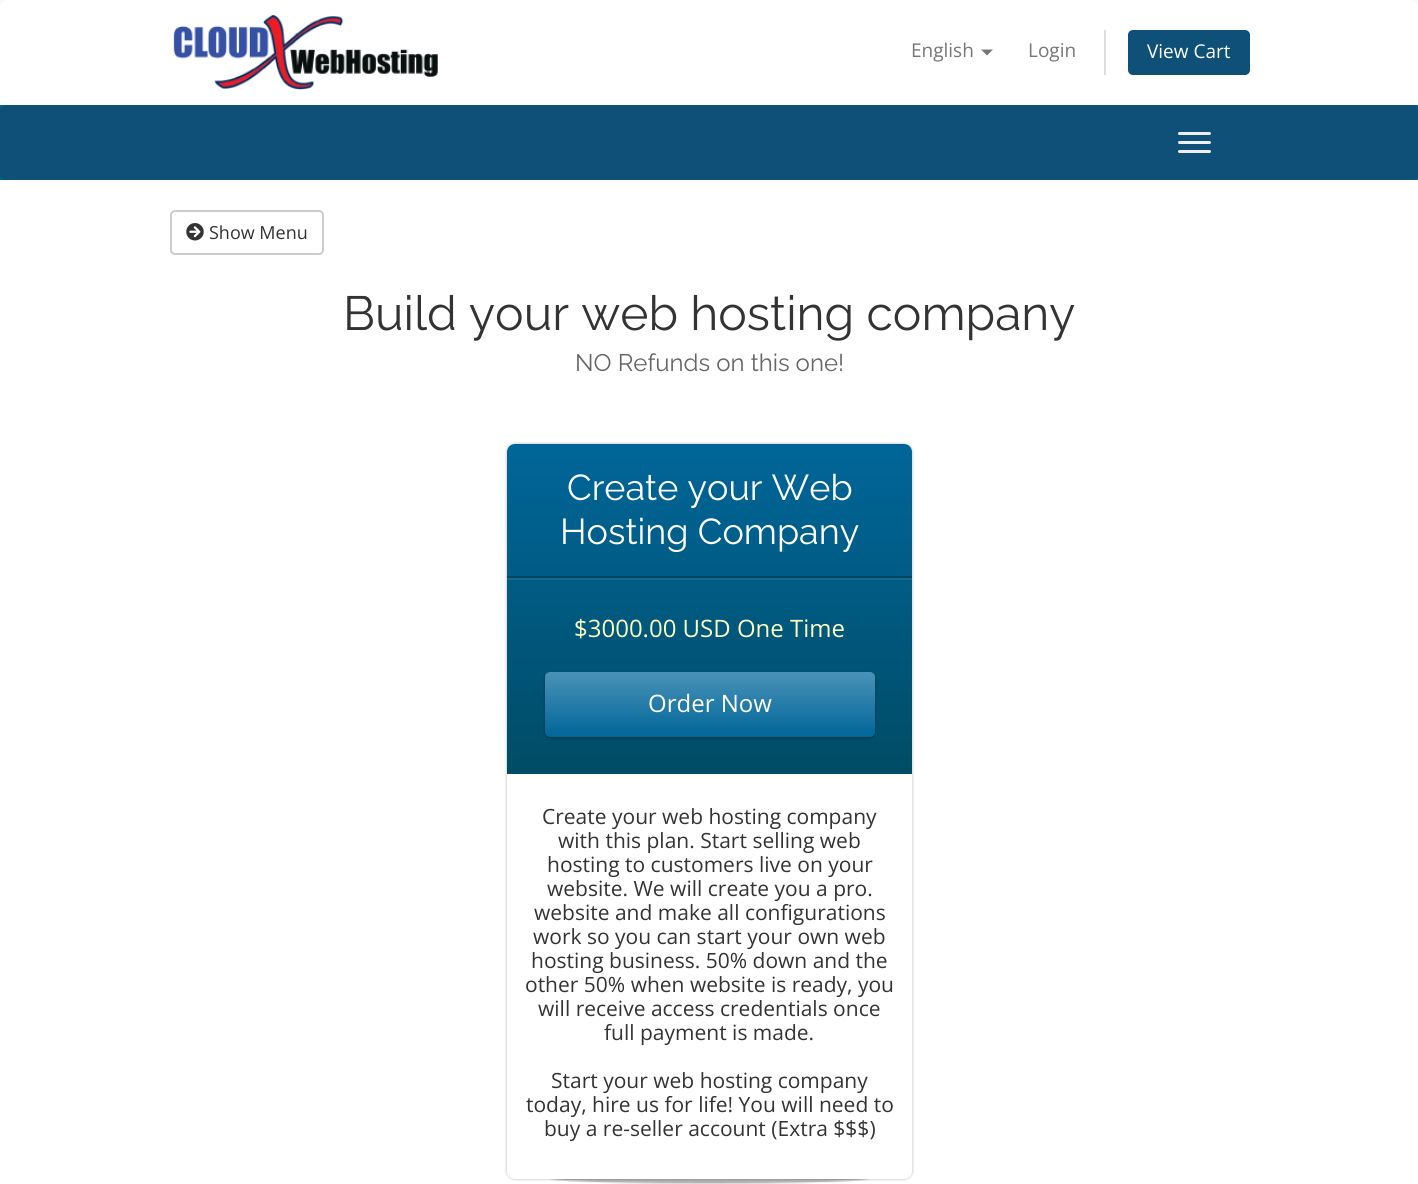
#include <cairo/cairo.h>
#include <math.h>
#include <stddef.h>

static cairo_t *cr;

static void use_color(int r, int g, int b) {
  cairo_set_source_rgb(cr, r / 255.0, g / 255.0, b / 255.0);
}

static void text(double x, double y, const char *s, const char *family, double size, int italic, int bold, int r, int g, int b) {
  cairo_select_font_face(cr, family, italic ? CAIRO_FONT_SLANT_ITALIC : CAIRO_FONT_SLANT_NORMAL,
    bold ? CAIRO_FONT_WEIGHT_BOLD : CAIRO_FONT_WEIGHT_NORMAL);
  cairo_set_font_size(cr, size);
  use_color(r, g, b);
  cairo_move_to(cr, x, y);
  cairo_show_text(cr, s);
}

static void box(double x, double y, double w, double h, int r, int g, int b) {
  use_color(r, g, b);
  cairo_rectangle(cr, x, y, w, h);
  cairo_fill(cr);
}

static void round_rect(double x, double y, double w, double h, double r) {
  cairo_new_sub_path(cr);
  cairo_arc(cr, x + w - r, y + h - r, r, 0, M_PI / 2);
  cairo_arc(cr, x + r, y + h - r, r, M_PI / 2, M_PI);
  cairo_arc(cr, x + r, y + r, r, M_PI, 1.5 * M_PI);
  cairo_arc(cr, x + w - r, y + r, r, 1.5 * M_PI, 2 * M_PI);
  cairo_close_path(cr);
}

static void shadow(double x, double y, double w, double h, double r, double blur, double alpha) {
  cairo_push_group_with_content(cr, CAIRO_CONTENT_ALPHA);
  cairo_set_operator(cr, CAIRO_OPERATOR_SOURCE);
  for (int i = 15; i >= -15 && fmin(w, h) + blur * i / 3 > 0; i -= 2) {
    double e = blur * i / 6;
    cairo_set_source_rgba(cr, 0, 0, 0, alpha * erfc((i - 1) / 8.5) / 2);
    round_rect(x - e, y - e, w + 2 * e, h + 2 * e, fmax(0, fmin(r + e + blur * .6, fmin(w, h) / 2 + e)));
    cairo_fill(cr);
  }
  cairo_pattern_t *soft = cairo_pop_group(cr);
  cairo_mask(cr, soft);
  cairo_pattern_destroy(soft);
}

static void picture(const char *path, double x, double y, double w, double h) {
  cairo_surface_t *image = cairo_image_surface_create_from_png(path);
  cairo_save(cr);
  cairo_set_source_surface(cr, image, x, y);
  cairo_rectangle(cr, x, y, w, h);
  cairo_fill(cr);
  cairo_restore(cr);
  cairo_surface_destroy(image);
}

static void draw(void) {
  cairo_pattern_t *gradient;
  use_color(248, 248, 248);
  cairo_paint(cr);
  use_color(255, 255, 255);
  cairo_new_path(cr);
  cairo_move_to(cr, 8, 0);
  cairo_line_to(cr, 1411, 0);
  cairo_curve_to(cr, 1415.5, 0, 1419, 3.5, 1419, 8);
  cairo_line_to(cr, 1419, 105);
  cairo_line_to(cr, 0, 105);
  cairo_line_to(cr, 0, 8);
  cairo_curve_to(cr, 0, 3.5, 3.5, 0, 8, 0);
  cairo_close_path(cr);
  cairo_fill(cr);
  picture("img_01.png", 173, 15, 265, 75);
  use_color(119, 119, 119);
  cairo_new_path(cr);
  cairo_move_to(cr, 981, 49.5);
  cairo_line_to(cr, 993, 49.5);
  cairo_line_to(cr, 987, 55.5);
  cairo_close_path(cr);
  cairo_fill(cr);
  box(1104, 30, 2, 45, 221, 221, 221);
  use_color(14, 80, 119);
  round_rect(1128, 30, 122, 45, 5);
  cairo_fill(cr);
  box(0, 105, 1418, 75, 0, 102, 135);
  use_color(14, 80, 119);
  round_rect(0, 105, 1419, 75, 6);
  cairo_fill(cr);
  use_color(238, 238, 238);
  round_rect(1178, 132, 33, 3, 1.5);
  cairo_fill(cr);
  round_rect(1178, 141, 33, 3, 1.5);
  cairo_fill(cr);
  round_rect(1178, 150, 33, 3, 1.5);
  cairo_fill(cr);
  box(0, 180, 1418, 1004, 255, 255, 255);
  round_rect(171, 211, 152, 43, 4);
  use_color(204, 204, 204);
  cairo_stroke(cr);
  picture("img_02.png", 186, 223, 18, 18);
  picture("img_03.png", 549, 1179, 321, 5);
  use_color(0, 0, 0);
  shadow(507, 444, 405, 735, 8, 1.5, 0.3);
  use_color(255, 255, 255);
  round_rect(507, 444, 405, 735, 8);
  cairo_fill(cr);
  gradient = cairo_pattern_create_linear(710, 444, 710, 774);
  cairo_pattern_add_color_stop_rgba(gradient, 0, 0, 0.4, 0.6, 1);
  cairo_pattern_add_color_stop_rgba(gradient, 1, 0, 0.298, 0.4, 1);
  cairo_set_source(cr, gradient);
  cairo_pattern_destroy(gradient);
  cairo_new_path(cr);
  cairo_move_to(cr, 515, 444);
  cairo_line_to(cr, 904, 444);
  cairo_curve_to(cr, 908.5, 444, 912, 447.5, 912, 452);
  cairo_line_to(cr, 912, 774);
  cairo_line_to(cr, 507, 774);
  cairo_line_to(cr, 507, 452);
  cairo_curve_to(cr, 507, 447.5, 510.5, 444, 515, 444);
  cairo_close_path(cr);
  cairo_fill(cr);
  box(507, 576, 405, 2, 0, 70, 98);
  box(507, 578, 405, 2, 18, 104, 141);
  use_color(0, 0, 0);
  shadow(545, 674, 330, 64, 5, 1.5, 0.4);
  gradient = cairo_pattern_create_linear(710, 672, 710, 737);
  cairo_pattern_add_color_stop_rgba(gradient, 0, 0.29, 0.573, 0.718, 1);
  cairo_pattern_add_color_stop_rgba(gradient, 1, 0, 0.4, 0.6, 1);
  cairo_set_source(cr, gradient);
  cairo_pattern_destroy(gradient);
  round_rect(545, 672, 330, 65, 5);
  cairo_fill(cr);
  text(911, 57, "English", "Open Sans", 19, 0, 0, 119, 119, 119);
  text(1028, 57, "Login", "Open Sans", 19, 0, 0, 119, 119, 119);
  text(1147, 58, "View Cart", "Open Sans", 19, 0, 0, 255, 255, 255);
  text(209, 239, "Show Menu", "Open Sans", 18, 0, 0, 51, 51, 51);
  text(343, 330, "Build your web hosting company", "Raleway", 48, 0, 0, 51, 51, 51);
  text(575, 371, "NO Refunds on this one!", "Raleway", 24, 0, 0, 102, 102, 102);
  text(567, 500, "Create your Web", "Raleway", 36, 0, 0, 255, 255, 255);
  text(560, 544, "Hosting Company", "Raleway", 36, 0, 0, 255, 255, 255);
  text(574, 637, "$3000.00 USD One Time", "Open Sans", 24, 0, 0, 255, 255, 191);
  text(648, 712, "Order Now", "Open Sans", 24, 0, 0, 255, 255, 255);
  text(542, 824, "Create your web hosting company", "Open Sans", 21, 0, 0, 51, 51, 51);
  text(558, 848, "with this plan. Start selling web", "Open Sans", 21, 0, 0, 51, 51, 51);
  text(547, 872, "hosting to customers live on your", "Open Sans", 21, 0, 0, 51, 51, 51);
  text(547, 896, "website. We will create you a pro.", "Open Sans", 21, 0, 0, 51, 51, 51);
  text(534, 920, "website and make all configurations", "Open Sans", 21, 0, 0, 51, 51, 51);
  text(533, 944, "work so you can start your own web", "Open Sans", 21, 0, 0, 51, 51, 51);
  text(531, 968, "hosting business. 50% down and the", "Open Sans", 21, 0, 0, 51, 51, 51);
  text(525, 992, "other 50% when website is ready, you", "Open Sans", 21, 0, 0, 51, 51, 51);
  text(538, 1016, "will receive access credentials once", "Open Sans", 21, 0, 0, 51, 51, 51);
  text(604, 1040, "full payment is made.", "Open Sans", 21, 0, 0, 51, 51, 51);
  text(551, 1088, "Start your web hosting company", "Open Sans", 21, 0, 0, 51, 51, 51);
  text(526, 1112, "today, hire us for life! You will need to", "Open Sans", 21, 0, 0, 51, 51, 51);
  text(544, 1136, "buy a re-seller account (Extra $$$)", "Open Sans", 21, 0, 0, 51, 51, 51);
}

int main(void) {
  cairo_surface_t *surface = cairo_image_surface_create(CAIRO_FORMAT_RGB24, 1418, 1184);
  cr = cairo_create(surface);
  cairo_font_options_t *options = cairo_font_options_create();
  cairo_font_options_set_hint_metrics(options, CAIRO_HINT_METRICS_OFF);
  cairo_font_options_set_hint_style(options, CAIRO_HINT_STYLE_NONE);
  cairo_set_font_options(cr, options);
  cairo_set_miter_limit(cr, 4);
  draw();
  cairo_surface_write_to_png(surface, "out.png");
  cairo_font_options_destroy(options);
  cairo_destroy(cr);
  cairo_surface_destroy(surface);
  return 0;
}
